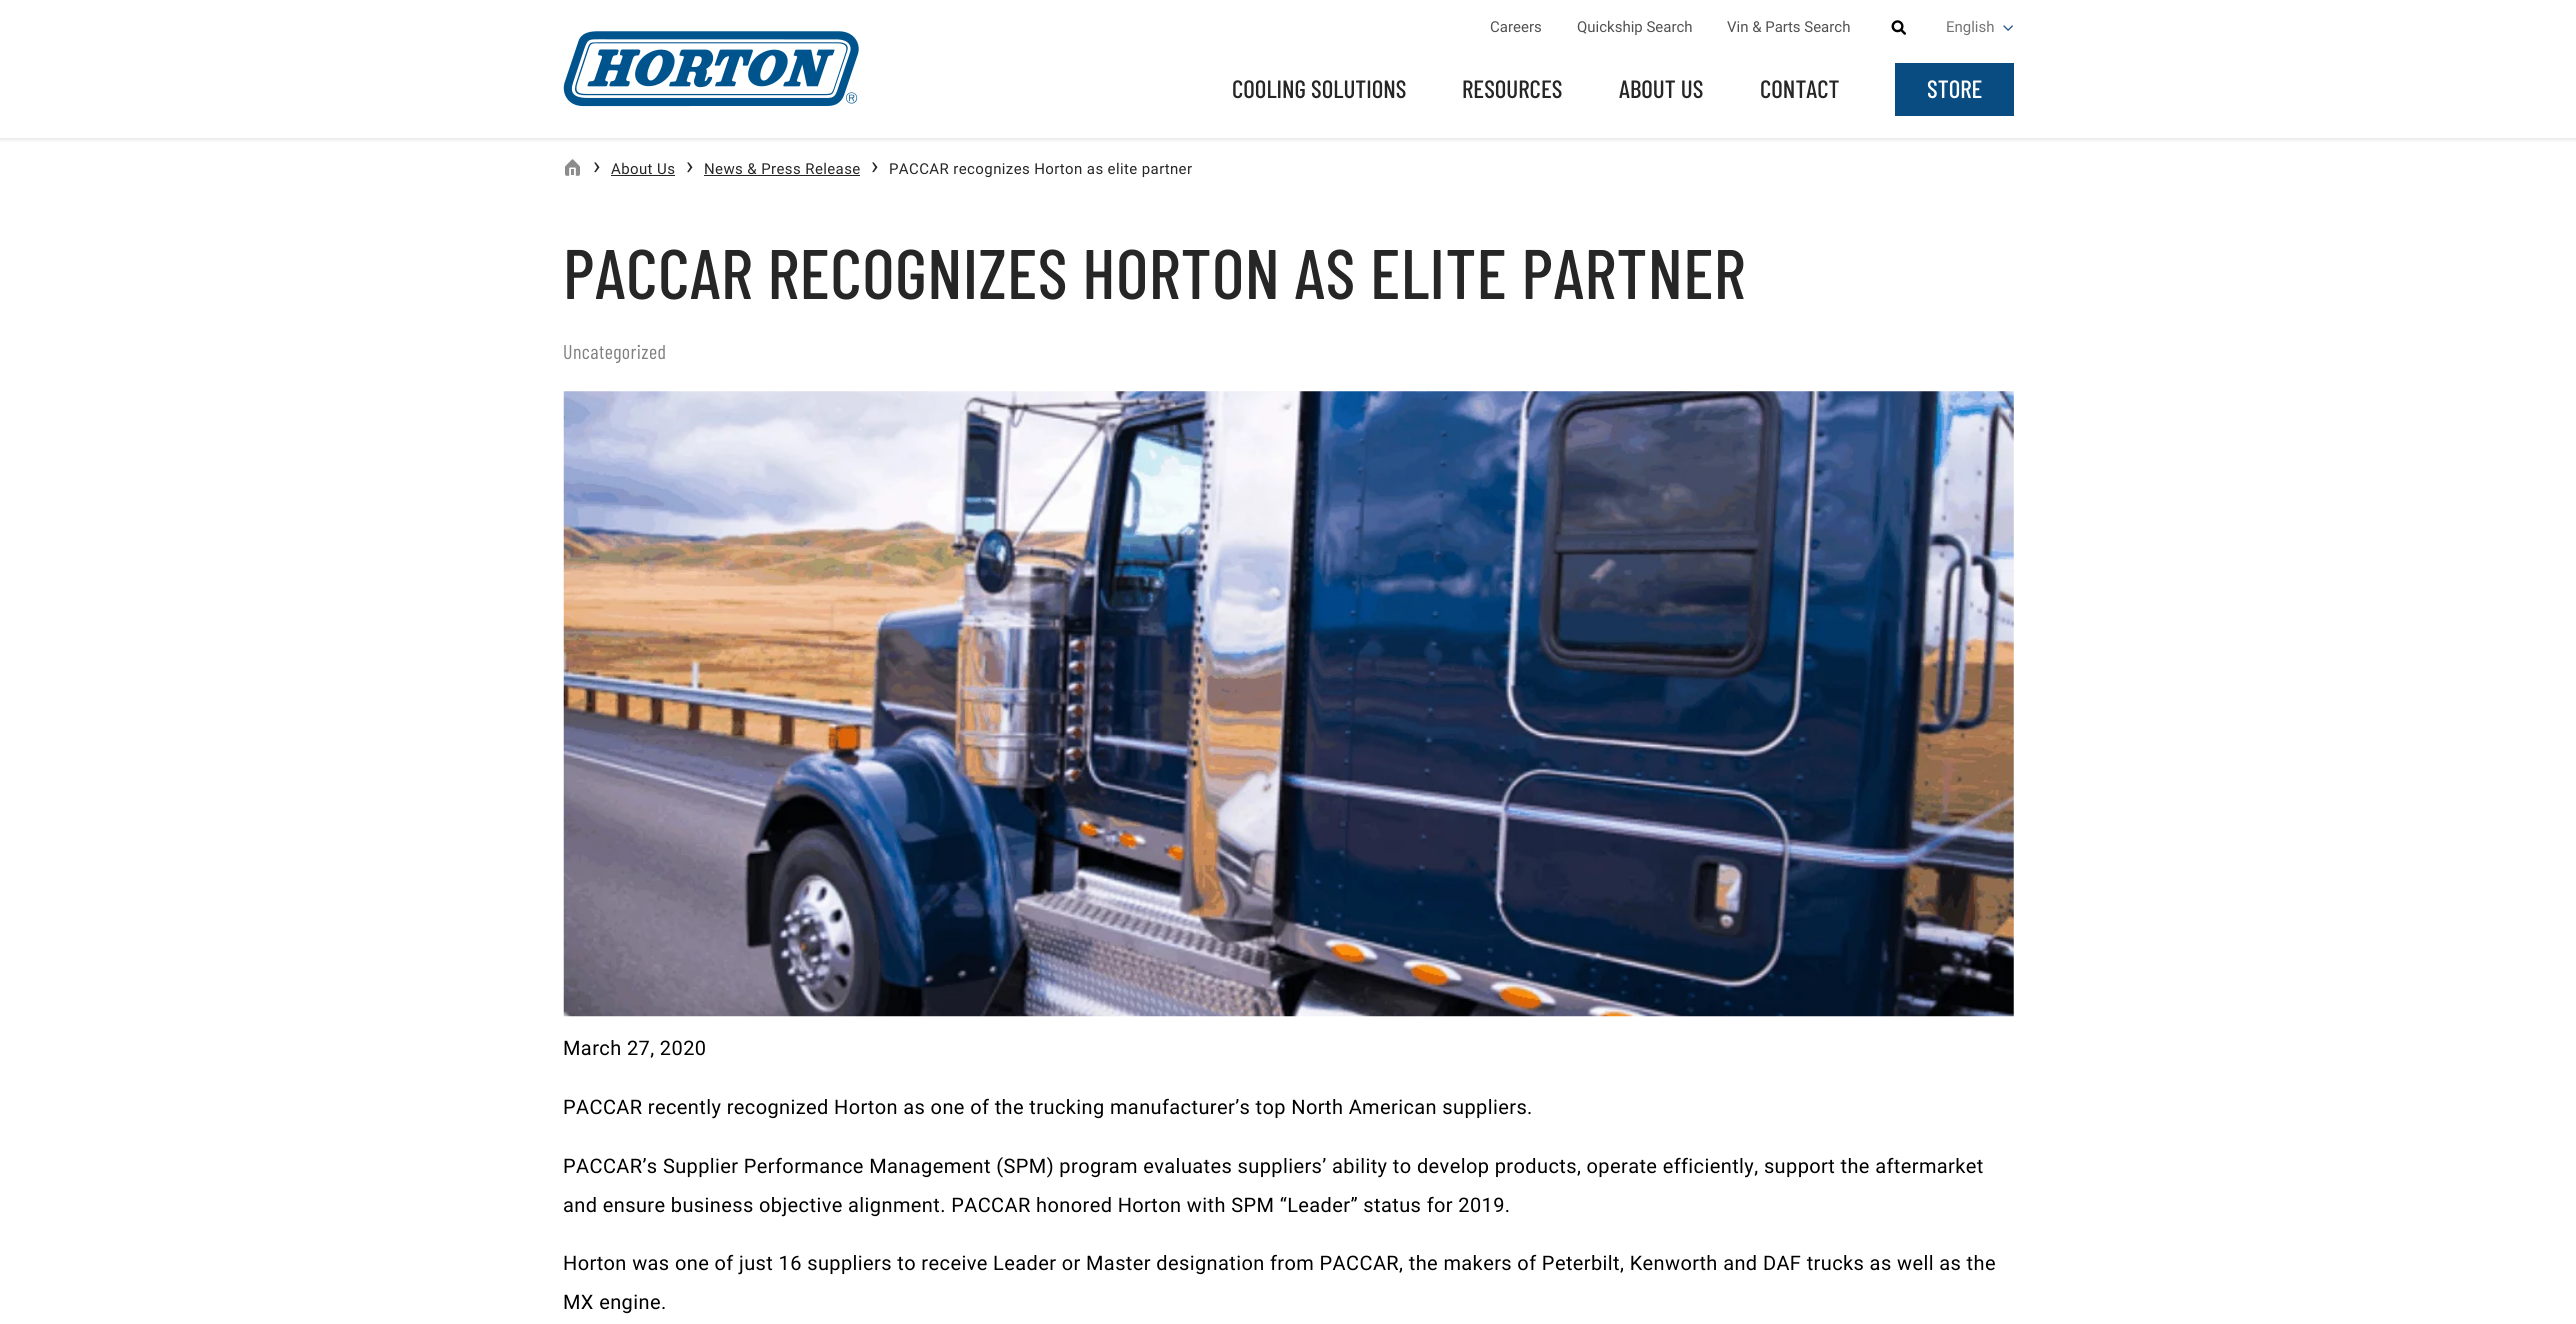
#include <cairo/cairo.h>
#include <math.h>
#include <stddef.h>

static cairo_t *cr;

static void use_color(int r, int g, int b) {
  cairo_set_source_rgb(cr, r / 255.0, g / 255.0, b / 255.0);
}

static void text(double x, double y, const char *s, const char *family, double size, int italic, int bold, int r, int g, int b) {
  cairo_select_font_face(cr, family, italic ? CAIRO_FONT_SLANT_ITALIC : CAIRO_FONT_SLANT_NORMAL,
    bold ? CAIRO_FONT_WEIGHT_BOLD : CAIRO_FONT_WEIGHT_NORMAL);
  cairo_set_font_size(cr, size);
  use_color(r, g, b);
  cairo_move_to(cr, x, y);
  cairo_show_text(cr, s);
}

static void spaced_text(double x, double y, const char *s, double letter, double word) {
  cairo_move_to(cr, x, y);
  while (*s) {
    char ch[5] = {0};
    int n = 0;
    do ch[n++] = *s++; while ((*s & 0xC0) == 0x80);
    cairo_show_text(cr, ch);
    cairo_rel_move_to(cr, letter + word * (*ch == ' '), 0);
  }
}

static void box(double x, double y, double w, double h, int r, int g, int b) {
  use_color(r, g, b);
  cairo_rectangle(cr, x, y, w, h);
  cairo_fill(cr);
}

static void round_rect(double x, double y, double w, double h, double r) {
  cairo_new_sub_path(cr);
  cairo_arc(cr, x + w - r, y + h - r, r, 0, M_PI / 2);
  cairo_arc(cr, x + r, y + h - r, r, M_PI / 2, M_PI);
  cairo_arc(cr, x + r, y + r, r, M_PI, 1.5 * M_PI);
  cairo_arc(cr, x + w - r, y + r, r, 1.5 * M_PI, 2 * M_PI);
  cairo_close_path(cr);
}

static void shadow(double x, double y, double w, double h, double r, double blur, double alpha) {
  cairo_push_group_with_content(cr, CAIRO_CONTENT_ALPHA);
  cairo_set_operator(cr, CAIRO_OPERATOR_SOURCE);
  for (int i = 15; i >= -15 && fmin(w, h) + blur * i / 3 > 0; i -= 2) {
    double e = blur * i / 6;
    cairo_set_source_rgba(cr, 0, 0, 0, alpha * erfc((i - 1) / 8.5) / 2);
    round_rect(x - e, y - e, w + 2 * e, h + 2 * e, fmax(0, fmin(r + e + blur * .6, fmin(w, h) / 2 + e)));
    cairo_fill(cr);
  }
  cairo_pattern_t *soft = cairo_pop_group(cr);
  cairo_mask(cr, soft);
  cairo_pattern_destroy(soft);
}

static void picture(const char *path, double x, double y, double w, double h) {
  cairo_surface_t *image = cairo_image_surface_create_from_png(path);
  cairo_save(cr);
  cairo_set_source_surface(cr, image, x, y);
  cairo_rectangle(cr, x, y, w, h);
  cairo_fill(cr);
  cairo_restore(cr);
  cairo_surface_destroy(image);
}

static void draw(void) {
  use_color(255, 255, 255);
  cairo_paint(cr);
  use_color(0, 0, 0);
  shadow(0, 3, 2576, 137, 0, 2, 0.1);
  box(0, 0, 2576, 138, 255, 255, 255);
  picture("img_01.png", 563, 31, 296, 76);
  picture("img_02.png", 1891, 20, 15, 15);
  picture("img_03.png", 2003, 25, 10, 6);
  box(1895, 63, 119, 53, 9, 76, 130);
  picture("img_04.png", 565, 159, 15, 17);
  box(611, 175, 64, 1, 38, 38, 38);
  box(704, 175, 156, 1, 38, 38, 38);
  picture("img_05.png", 563, 391, 1451, 626);
  text(1490, 32, "Careers", "Roboto", 15, 0, 0, 81, 81, 81);
  text(1577, 32, "Quickship Search", "Roboto", 15, 0, 0, 81, 81, 81);
  text(1727, 32, "Vin & Parts Search", "Roboto", 15, 0, 0, 81, 81, 81);
  text(1946, 32, "English", "Roboto", 15, 0, 0, 116, 116, 116);
  text(1232, 98, "COOLING SOLUTIONS", "Barlow Condensed Medium", 25, 0, 0, 38, 38, 38);
  text(1462, 98, "RESOURCES", "Barlow Condensed Medium", 25, 0, 0, 38, 38, 38);
  text(1619, 98, "ABOUT US", "Barlow Condensed Medium", 25, 0, 0, 38, 38, 38);
  text(1760, 98, "CONTACT", "Barlow Condensed Medium", 25, 0, 0, 38, 38, 38);
  text(1927, 98, "STORE", "Barlow Condensed Medium", 25, 0, 0, 255, 255, 255);
  cairo_select_font_face(cr, "Roboto", CAIRO_FONT_SLANT_NORMAL, CAIRO_FONT_WEIGHT_NORMAL);
  use_color(38, 38, 38);
  spaced_text(593, 174, "›", 0.4, 0);
  cairo_set_font_size(cr, 15);
  spaced_text(611, 174, "About Us", 0.4, 0);
  cairo_set_font_size(cr, 25);
  spaced_text(686, 174, "›", 0.4, 0);
  cairo_set_font_size(cr, 15);
  spaced_text(704, 174, "News & Press Release", 0.4, 0);
  cairo_set_font_size(cr, 25);
  spaced_text(871, 174, "›", 0.4, 0);
  cairo_set_font_size(cr, 15);
  spaced_text(889, 174, "PACCAR recognizes Horton as elite partner", 0.4, 0);
  cairo_select_font_face(cr, "Barlow Condensed Medium", CAIRO_FONT_SLANT_NORMAL, CAIRO_FONT_WEIGHT_NORMAL);
  cairo_set_font_size(cr, 70);
  spaced_text(563, 299, "PACCAR RECOGNIZES HORTON AS ELITE PARTNER", 0.4, 0);
  cairo_select_font_face(cr, "Barlow Condensed", CAIRO_FONT_SLANT_NORMAL, CAIRO_FONT_WEIGHT_NORMAL);
  cairo_set_font_size(cr, 20);
  use_color(128, 128, 128);
  spaced_text(563, 359, "Uncategorized", 0.4, 0);
  cairo_select_font_face(cr, "Roboto", CAIRO_FONT_SLANT_NORMAL, CAIRO_FONT_WEIGHT_NORMAL);
  use_color(0, 0, 0);
  spaced_text(563, 1055, "March 27, 2020", 0.4, 0);
  spaced_text(563, 1114, "PACCAR recently recognized Horton as one of the trucking manufacturer’s top North American suppliers.", 0.4, 0);
  spaced_text(563, 1173, "PACCAR’s Supplier Performance Management (SPM) program evaluates suppliers’ ability to develop products, operate efficiently, support the aftermarket", 0.4, 0);
  spaced_text(563, 1212, "and ensure business objective alignment. PACCAR honored Horton with SPM “Leader” status for 2019.", 0.4, 0);
  spaced_text(563, 1270, "Horton was one of just 16 suppliers to receive Leader or Master designation from PACCAR, the makers of Peterbilt, Kenworth and DAF trucks as well as the", 0.4, 0);
  spaced_text(563, 1309, "MX engine.", 0.4, 0);
}

int main(void) {
  cairo_surface_t *surface = cairo_image_surface_create(CAIRO_FORMAT_RGB24, 2576, 1324);
  cr = cairo_create(surface);
  cairo_font_options_t *options = cairo_font_options_create();
  cairo_font_options_set_hint_metrics(options, CAIRO_HINT_METRICS_OFF);
  cairo_font_options_set_hint_style(options, CAIRO_HINT_STYLE_NONE);
  cairo_set_font_options(cr, options);
  cairo_set_miter_limit(cr, 4);
  draw();
  cairo_surface_write_to_png(surface, "out.png");
  cairo_font_options_destroy(options);
  cairo_destroy(cr);
  cairo_surface_destroy(surface);
  return 0;
}
